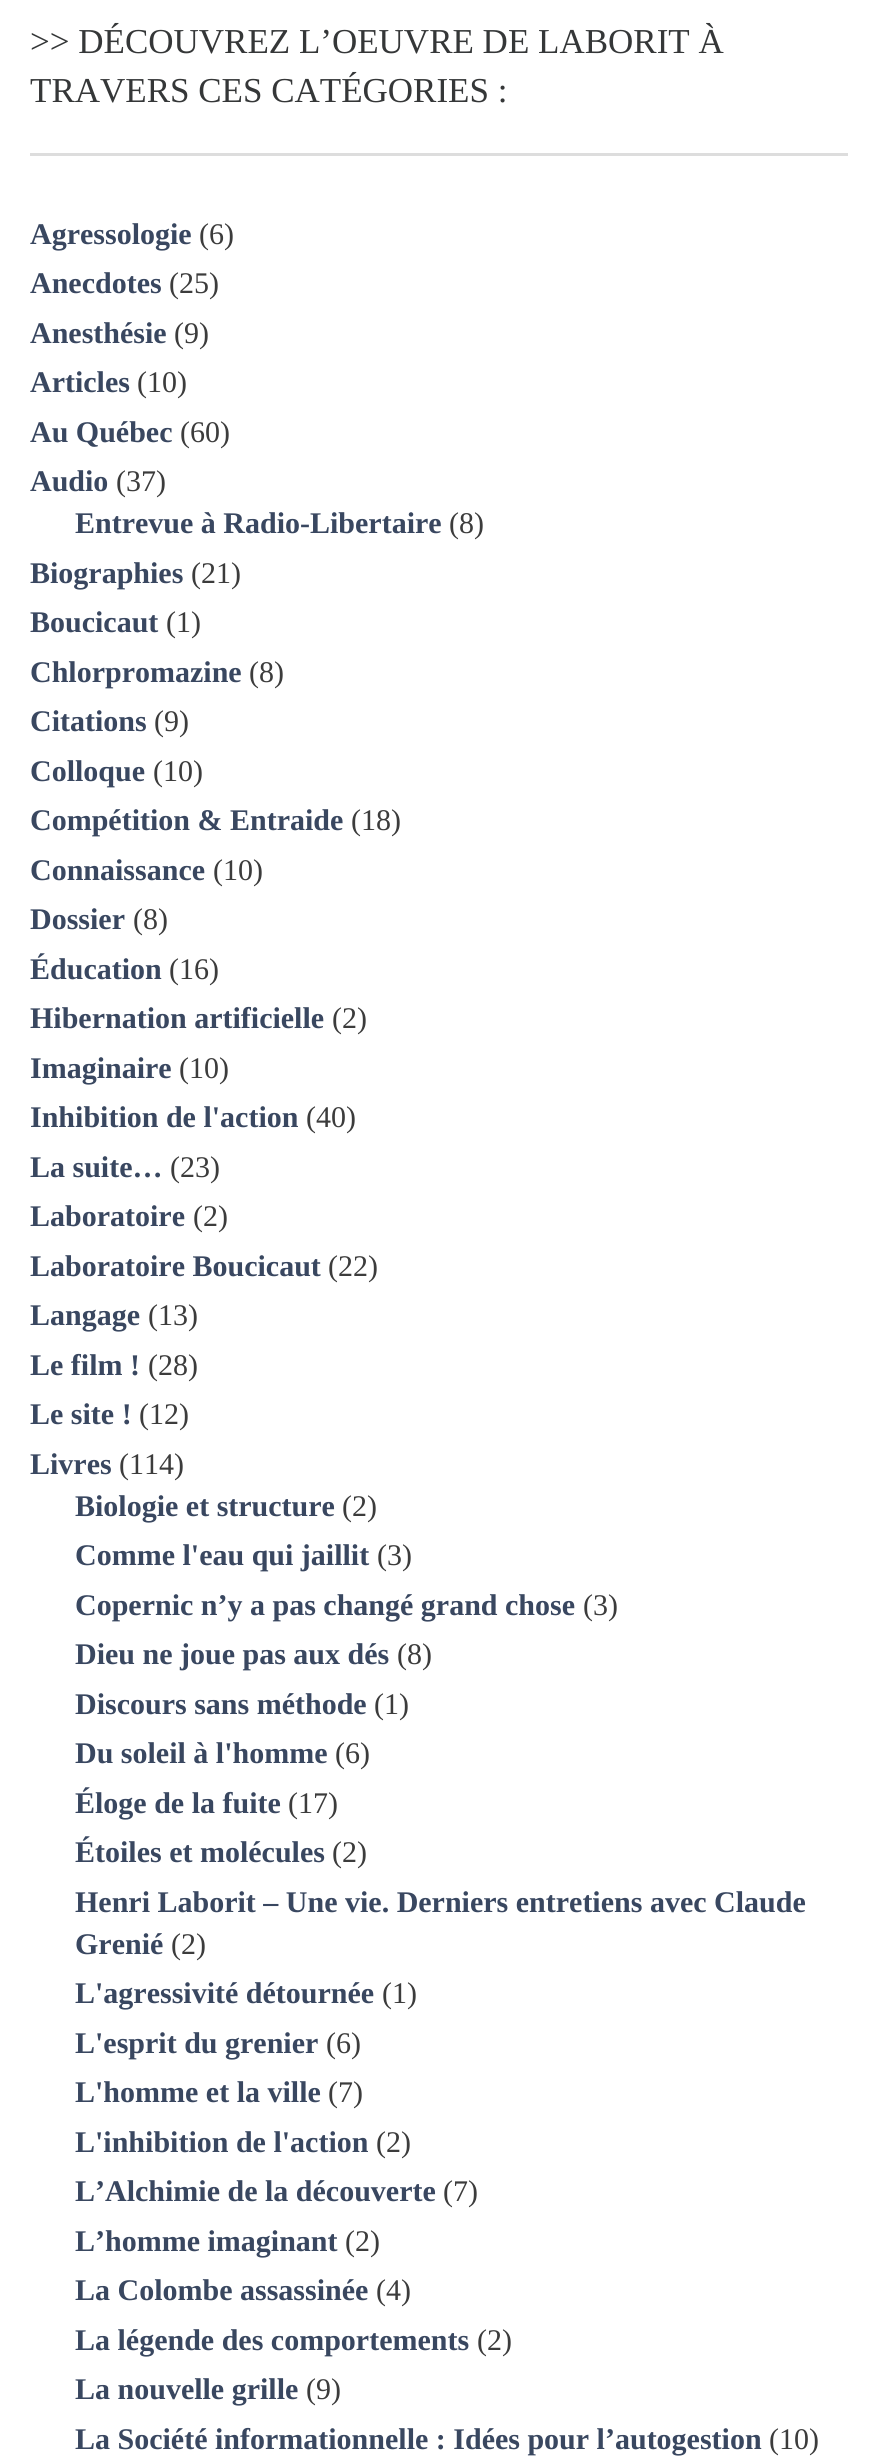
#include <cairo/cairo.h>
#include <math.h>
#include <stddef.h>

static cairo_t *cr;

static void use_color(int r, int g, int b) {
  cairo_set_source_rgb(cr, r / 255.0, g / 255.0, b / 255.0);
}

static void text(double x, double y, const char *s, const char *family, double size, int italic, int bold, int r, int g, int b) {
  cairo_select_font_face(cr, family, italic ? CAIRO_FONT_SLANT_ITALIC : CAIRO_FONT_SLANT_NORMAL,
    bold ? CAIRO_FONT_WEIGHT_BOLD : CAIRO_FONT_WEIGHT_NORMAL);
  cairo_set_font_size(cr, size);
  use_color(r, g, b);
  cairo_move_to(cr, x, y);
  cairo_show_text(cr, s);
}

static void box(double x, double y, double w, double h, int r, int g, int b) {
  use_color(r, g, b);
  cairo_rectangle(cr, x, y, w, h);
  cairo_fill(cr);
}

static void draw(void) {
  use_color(255, 255, 255);
  cairo_paint(cr);
  box(30, 153, 818, 3, 221, 221, 221);
  text(30, 53, ">> DÉCOUVREZ L’OEUVRE DE LABORIT À", "Liberation Serif", 35, 0, 0, 53, 55, 56);
  text(30, 102, "TRAVERS CES CATÉGORIES :", "Liberation Serif", 35, 0, 0, 53, 55, 56);
  text(30, 244, "Agressologie", "Liberation Serif", 30, 0, 1, 57, 71, 96);
  text(199, 244, "(6)", "Liberation Serif", 30, 0, 0, 60, 60, 60);
  text(30, 293, "Anecdotes", "Liberation Serif", 30, 0, 1, 57, 71, 96);
  text(169, 293, "(25)", "Liberation Serif", 30, 0, 0, 60, 60, 60);
  text(30, 343, "Anesthésie", "Liberation Serif", 30, 0, 1, 57, 71, 96);
  text(174, 343, "(9)", "Liberation Serif", 30, 0, 0, 60, 60, 60);
  text(30, 392, "Articles", "Liberation Serif", 30, 0, 1, 57, 71, 96);
  text(137, 392, "(10)", "Liberation Serif", 30, 0, 0, 60, 60, 60);
  text(30, 442, "Au Québec", "Liberation Serif", 30, 0, 1, 57, 71, 96);
  text(180, 442, "(60)", "Liberation Serif", 30, 0, 0, 60, 60, 60);
  text(30, 491, "Audio", "Liberation Serif", 30, 0, 1, 57, 71, 96);
  text(116, 491, "(37)", "Liberation Serif", 30, 0, 0, 60, 60, 60);
  text(75, 533, "Entrevue à Radio-Libertaire", "Liberation Serif", 30, 0, 1, 57, 71, 96);
  text(449, 533, "(8)", "Liberation Serif", 30, 0, 0, 60, 60, 60);
  text(30, 583, "Biographies", "Liberation Serif", 30, 0, 1, 57, 71, 96);
  text(191, 583, "(21)", "Liberation Serif", 30, 0, 0, 60, 60, 60);
  text(30, 632, "Boucicaut", "Liberation Serif", 30, 0, 1, 57, 71, 96);
  text(166, 632, "(1)", "Liberation Serif", 30, 0, 0, 60, 60, 60);
  text(30, 682, "Chlorpromazine", "Liberation Serif", 30, 0, 1, 57, 71, 96);
  text(249, 682, "(8)", "Liberation Serif", 30, 0, 0, 60, 60, 60);
  text(30, 731, "Citations", "Liberation Serif", 30, 0, 1, 57, 71, 96);
  text(154, 731, "(9)", "Liberation Serif", 30, 0, 0, 60, 60, 60);
  text(30, 781, "Colloque", "Liberation Serif", 30, 0, 1, 57, 71, 96);
  text(153, 781, "(10)", "Liberation Serif", 30, 0, 0, 60, 60, 60);
  text(30, 830, "Compétition & Entraide", "Liberation Serif", 30, 0, 1, 57, 71, 96);
  text(351, 830, "(18)", "Liberation Serif", 30, 0, 0, 60, 60, 60);
  text(30, 880, "Connaissance", "Liberation Serif", 30, 0, 1, 57, 71, 96);
  text(213, 880, "(10)", "Liberation Serif", 30, 0, 0, 60, 60, 60);
  text(30, 929, "Dossier", "Liberation Serif", 30, 0, 1, 57, 71, 96);
  text(133, 929, "(8)", "Liberation Serif", 30, 0, 0, 60, 60, 60);
  text(30, 979, "Éducation", "Liberation Serif", 30, 0, 1, 57, 71, 96);
  text(169, 979, "(16)", "Liberation Serif", 30, 0, 0, 60, 60, 60);
  text(30, 1028, "Hibernation artificielle", "Liberation Serif", 30, 0, 1, 57, 71, 96);
  text(332, 1028, "(2)", "Liberation Serif", 30, 0, 0, 60, 60, 60);
  text(30, 1078, "Imaginaire", "Liberation Serif", 30, 0, 1, 57, 71, 96);
  text(179, 1078, "(10)", "Liberation Serif", 30, 0, 0, 60, 60, 60);
  text(30, 1127, "Inhibition de l'action", "Liberation Serif", 30, 0, 1, 57, 71, 96);
  text(306, 1127, "(40)", "Liberation Serif", 30, 0, 0, 60, 60, 60);
  text(30, 1177, "La suite…", "Liberation Serif", 30, 0, 1, 57, 71, 96);
  text(170, 1177, "(23)", "Liberation Serif", 30, 0, 0, 60, 60, 60);
  text(30, 1226, "Laboratoire", "Liberation Serif", 30, 0, 1, 57, 71, 96);
  text(193, 1226, "(2)", "Liberation Serif", 30, 0, 0, 60, 60, 60);
  text(30, 1276, "Laboratoire Boucicaut", "Liberation Serif", 30, 0, 1, 57, 71, 96);
  text(328, 1276, "(22)", "Liberation Serif", 30, 0, 0, 60, 60, 60);
  text(30, 1325, "Langage", "Liberation Serif", 30, 0, 1, 57, 71, 96);
  text(148, 1325, "(13)", "Liberation Serif", 30, 0, 0, 60, 60, 60);
  text(30, 1375, "Le film !", "Liberation Serif", 30, 0, 1, 57, 71, 96);
  text(148, 1375, "(28)", "Liberation Serif", 30, 0, 0, 60, 60, 60);
  text(30, 1424, "Le site !", "Liberation Serif", 30, 0, 1, 57, 71, 96);
  text(139, 1424, "(12)", "Liberation Serif", 30, 0, 0, 60, 60, 60);
  text(30, 1474, "Livres", "Liberation Serif", 30, 0, 1, 57, 71, 96);
  text(119, 1474, "(114)", "Liberation Serif", 30, 0, 0, 60, 60, 60);
  text(75, 1516, "Biologie et structure", "Liberation Serif", 30, 0, 1, 57, 71, 96);
  text(342, 1516, "(2)", "Liberation Serif", 30, 0, 0, 60, 60, 60);
  text(75, 1565, "Comme l'eau qui jaillit", "Liberation Serif", 30, 0, 1, 57, 71, 96);
  text(377, 1565, "(3)", "Liberation Serif", 30, 0, 0, 60, 60, 60);
  text(75, 1615, "Copernic n’y a pas changé grand chose", "Liberation Serif", 30, 0, 1, 57, 71, 96);
  text(583, 1615, "(3)", "Liberation Serif", 30, 0, 0, 60, 60, 60);
  text(75, 1664, "Dieu ne joue pas aux dés", "Liberation Serif", 30, 0, 1, 57, 71, 96);
  text(397, 1664, "(8)", "Liberation Serif", 30, 0, 0, 60, 60, 60);
  text(75, 1714, "Discours sans méthode", "Liberation Serif", 30, 0, 1, 57, 71, 96);
  text(374, 1714, "(1)", "Liberation Serif", 30, 0, 0, 60, 60, 60);
  text(75, 1763, "Du soleil à l'homme", "Liberation Serif", 30, 0, 1, 57, 71, 96);
  text(335, 1763, "(6)", "Liberation Serif", 30, 0, 0, 60, 60, 60);
  text(75, 1813, "Éloge de la fuite", "Liberation Serif", 30, 0, 1, 57, 71, 96);
  text(288, 1813, "(17)", "Liberation Serif", 30, 0, 0, 60, 60, 60);
  text(75, 1862, "Étoiles et molécules", "Liberation Serif", 30, 0, 1, 57, 71, 96);
  text(332, 1862, "(2)", "Liberation Serif", 30, 0, 0, 60, 60, 60);
  text(75, 1912, "Henri Laborit – Une vie. Derniers entretiens avec Claude", "Liberation Serif", 30, 0, 1, 57, 71, 96);
  text(75, 1954, "Grenié", "Liberation Serif", 30, 0, 1, 57, 71, 96);
  text(171, 1954, "(2)", "Liberation Serif", 30, 0, 0, 60, 60, 60);
  text(75, 2003, "L'agressivité détournée", "Liberation Serif", 30, 0, 1, 57, 71, 96);
  text(382, 2003, "(1)", "Liberation Serif", 30, 0, 0, 60, 60, 60);
  text(75, 2053, "L'esprit du grenier", "Liberation Serif", 30, 0, 1, 57, 71, 96);
  text(326, 2053, "(6)", "Liberation Serif", 30, 0, 0, 60, 60, 60);
  text(75, 2102, "L'homme et la ville", "Liberation Serif", 30, 0, 1, 57, 71, 96);
  text(328, 2102, "(7)", "Liberation Serif", 30, 0, 0, 60, 60, 60);
  text(75, 2152, "L'inhibition de l'action", "Liberation Serif", 30, 0, 1, 57, 71, 96);
  text(376, 2152, "(2)", "Liberation Serif", 30, 0, 0, 60, 60, 60);
  text(75, 2201, "L’Alchimie de la découverte", "Liberation Serif", 30, 0, 1, 57, 71, 96);
  text(443, 2201, "(7)", "Liberation Serif", 30, 0, 0, 60, 60, 60);
  text(75, 2251, "L’homme imaginant", "Liberation Serif", 30, 0, 1, 57, 71, 96);
  text(345, 2251, "(2)", "Liberation Serif", 30, 0, 0, 60, 60, 60);
  text(75, 2300, "La Colombe assassinée", "Liberation Serif", 30, 0, 1, 57, 71, 96);
  text(376, 2300, "(4)", "Liberation Serif", 30, 0, 0, 60, 60, 60);
  text(75, 2350, "La légende des comportements", "Liberation Serif", 30, 0, 1, 57, 71, 96);
  text(477, 2350, "(2)", "Liberation Serif", 30, 0, 0, 60, 60, 60);
  text(75, 2399, "La nouvelle grille", "Liberation Serif", 30, 0, 1, 57, 71, 96);
  text(306, 2399, "(9)", "Liberation Serif", 30, 0, 0, 60, 60, 60);
  text(75, 2449, "La Société informationnelle : Idées pour l’autogestion", "Liberation Serif", 30, 0, 1, 57, 71, 96);
  text(769, 2449, "(10)", "Liberation Serif", 30, 0, 0, 60, 60, 60);
}

int main(void) {
  cairo_surface_t *surface = cairo_image_surface_create(CAIRO_FORMAT_RGB24, 876, 2462);
  cr = cairo_create(surface);
  cairo_font_options_t *options = cairo_font_options_create();
  cairo_font_options_set_hint_metrics(options, CAIRO_HINT_METRICS_OFF);
  cairo_font_options_set_hint_style(options, CAIRO_HINT_STYLE_NONE);
  cairo_set_font_options(cr, options);
  cairo_set_miter_limit(cr, 4);
  draw();
  cairo_surface_write_to_png(surface, "out.png");
  cairo_font_options_destroy(options);
  cairo_destroy(cr);
  cairo_surface_destroy(surface);
  return 0;
}
